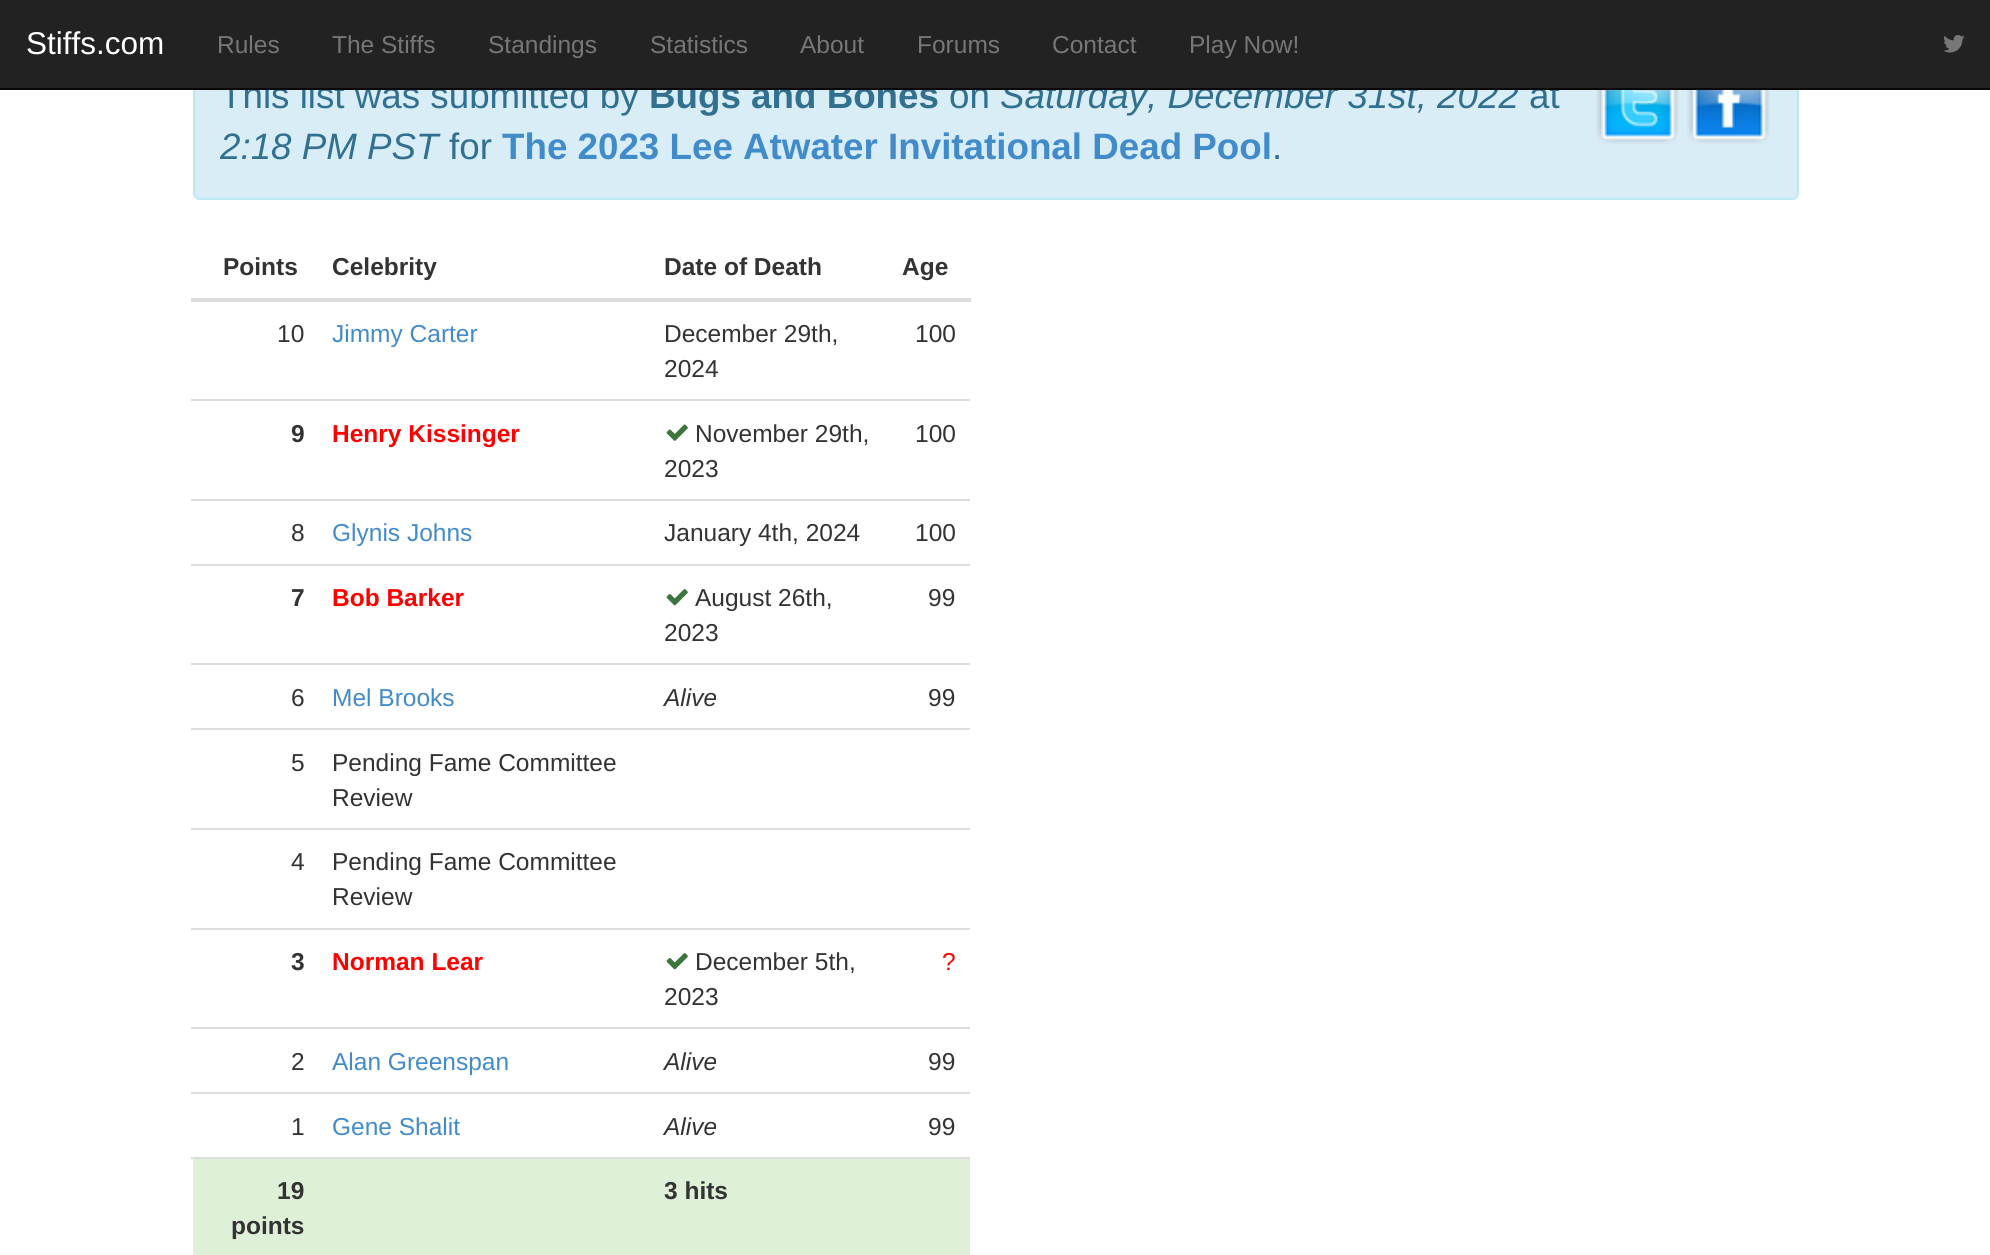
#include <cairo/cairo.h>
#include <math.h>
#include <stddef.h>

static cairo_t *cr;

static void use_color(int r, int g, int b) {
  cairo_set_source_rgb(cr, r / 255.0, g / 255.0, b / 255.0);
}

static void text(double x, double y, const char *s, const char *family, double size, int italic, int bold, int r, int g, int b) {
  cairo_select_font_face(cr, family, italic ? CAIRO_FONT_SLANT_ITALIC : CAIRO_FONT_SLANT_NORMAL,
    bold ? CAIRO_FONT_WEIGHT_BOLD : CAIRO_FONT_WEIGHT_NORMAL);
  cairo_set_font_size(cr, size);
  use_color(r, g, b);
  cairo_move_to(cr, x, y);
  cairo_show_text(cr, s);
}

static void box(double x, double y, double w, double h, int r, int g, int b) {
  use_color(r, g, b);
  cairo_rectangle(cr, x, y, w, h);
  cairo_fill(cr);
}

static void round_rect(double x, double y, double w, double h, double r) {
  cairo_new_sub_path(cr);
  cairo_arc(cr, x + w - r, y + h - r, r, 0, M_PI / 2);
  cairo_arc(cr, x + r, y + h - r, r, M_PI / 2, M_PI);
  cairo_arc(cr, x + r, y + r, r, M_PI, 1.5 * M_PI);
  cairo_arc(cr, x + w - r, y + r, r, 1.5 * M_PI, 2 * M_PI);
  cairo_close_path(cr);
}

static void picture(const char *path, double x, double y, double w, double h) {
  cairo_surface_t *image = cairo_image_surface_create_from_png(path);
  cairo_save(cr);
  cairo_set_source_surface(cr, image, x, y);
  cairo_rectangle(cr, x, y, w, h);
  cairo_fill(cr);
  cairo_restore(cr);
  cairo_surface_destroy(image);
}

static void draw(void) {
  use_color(255, 255, 255);
  cairo_paint(cr);
  use_color(217, 237, 247);
  round_rect(194, 34, 1604, 165, 6);
  cairo_fill_preserve(cr);
  use_color(188, 232, 241);
  cairo_stroke(cr);
  picture("img_02.png", 1596, 90, 83, 54);
  picture("img_03.png", 1687, 90, 83, 54);
  box(191, 298, 780, 4, 221, 221, 221);
  picture("img_04.png", 666, 424, 22, 17);
  box(191, 399, 779, 2, 221, 221, 221);
  box(191, 499, 779, 2, 221, 221, 221);
  picture("img_05.png", 666, 589, 22, 17);
  box(191, 564, 779, 2, 221, 221, 221);
  box(191, 663, 779, 2, 221, 221, 221);
  box(191, 728, 779, 2, 221, 221, 221);
  box(191, 828, 779, 2, 221, 221, 221);
  picture("img_05.png", 666, 953, 22, 17);
  box(191, 928, 779, 2, 221, 221, 221);
  box(191, 1027, 779, 2, 221, 221, 221);
  box(191, 1092, 779, 2, 221, 221, 221);
  box(191, 1157, 779, 2, 221, 221, 221);
  box(193, 1159, 777, 96, 223, 240, 216);
  text(220, 108, "This list was submitted by", "Liberation Sans", 36.75, 0, 0, 49, 112, 143);
  text(649, 108, "Bugs and Bones", "Liberation Sans", 36.75, 0, 1, 49, 112, 143);
  text(949, 108, "on", "Liberation Sans", 36.75, 0, 0, 49, 112, 143);
  text(1000, 108, "Saturday, December 31st, 2022", "Liberation Sans", 36.75, 1, 0, 49, 112, 143);
  text(1529, 108, "at", "Liberation Sans", 36.75, 0, 0, 49, 112, 143);
  box(0, 0, 1990, 88, 34, 34, 34);
  picture("img_01.png", 1943, 35, 22, 18);
  text(1189, 53, "Play Now!", "Liberation Sans", 24.5, 0, 0, 119, 119, 119);
  text(1052, 53, "Contact", "Liberation Sans", 24.5, 0, 0, 119, 119, 119);
  text(917, 53, "Forums", "Liberation Sans", 24.5, 0, 0, 119, 119, 119);
  text(800, 53, "About", "Liberation Sans", 24.5, 0, 0, 119, 119, 119);
  text(650, 53, "Statistics", "Liberation Sans", 24.5, 0, 0, 119, 119, 119);
  text(488, 53, "Standings", "Liberation Sans", 24.5, 0, 0, 119, 119, 119);
  text(332, 53, "The Stiffs", "Liberation Sans", 24.5, 0, 0, 119, 119, 119);
  text(217, 53, "Rules", "Liberation Sans", 24.5, 0, 0, 119, 119, 119);
  text(26, 54, "Stiffs.com", "Liberation Sans", 31.5, 0, 0, 255, 255, 255);
  box(0, 88, 1990, 2, 8, 8, 8);
  text(220, 159, "2:18 PM PST", "Liberation Sans", 36.75, 1, 0, 49, 112, 143);
  text(449, 159, "for", "Liberation Sans", 36.75, 0, 0, 49, 112, 143);
  text(502, 159, "The 2023 Lee Atwater Invitational Dead Pool", "Liberation Sans", 36.75, 0, 1, 66, 139, 202);
  text(1272, 159, ".", "Liberation Sans", 36.75, 0, 0, 49, 112, 143);
  text(223, 275, "Points", "Liberation Sans", 24.5, 0, 1, 51, 51, 51);
  text(332, 275, "Celebrity", "Liberation Sans", 24.5, 0, 1, 51, 51, 51);
  text(664, 275, "Date of Death", "Liberation Sans", 24.5, 0, 1, 51, 51, 51);
  text(902, 275, "Age", "Liberation Sans", 24.5, 0, 1, 51, 51, 51);
  text(277, 342, "10", "Liberation Sans", 24.5, 0, 0, 51, 51, 51);
  text(332, 342, "Jimmy Carter", "Liberation Sans", 24.5, 0, 0, 66, 139, 202);
  text(664, 342, "December 29th,", "Liberation Sans", 24.5, 0, 0, 51, 51, 51);
  text(664, 377, "2024", "Liberation Sans", 24.5, 0, 0, 51, 51, 51);
  text(915, 342, "100", "Liberation Sans", 24.5, 0, 0, 51, 51, 51);
  text(291, 442, "9", "Liberation Sans", 24.5, 0, 1, 51, 51, 51);
  text(332, 442, "Henry Kissinger", "Liberation Sans", 24.5, 0, 1, 255, 0, 0);
  text(695, 442, "November 29th,", "Liberation Sans", 24.5, 0, 0, 51, 51, 51);
  text(664, 477, "2023", "Liberation Sans", 24.5, 0, 0, 51, 51, 51);
  text(915, 442, "100", "Liberation Sans", 24.5, 0, 0, 51, 51, 51);
  text(291, 541, "8", "Liberation Sans", 24.5, 0, 0, 51, 51, 51);
  text(332, 541, "Glynis Johns", "Liberation Sans", 24.5, 0, 0, 66, 139, 202);
  text(664, 541, "January 4th, 2024", "Liberation Sans", 24.5, 0, 0, 51, 51, 51);
  text(915, 541, "100", "Liberation Sans", 24.5, 0, 0, 51, 51, 51);
  text(291, 606, "7", "Liberation Sans", 24.5, 0, 1, 51, 51, 51);
  text(332, 606, "Bob Barker", "Liberation Sans", 24.5, 0, 1, 255, 0, 0);
  text(695, 606, "August 26th,", "Liberation Sans", 24.5, 0, 0, 51, 51, 51);
  text(664, 641, "2023", "Liberation Sans", 24.5, 0, 0, 51, 51, 51);
  text(928, 606, "99", "Liberation Sans", 24.5, 0, 0, 51, 51, 51);
  text(291, 706, "6", "Liberation Sans", 24.5, 0, 0, 51, 51, 51);
  text(332, 706, "Mel Brooks", "Liberation Sans", 24.5, 0, 0, 66, 139, 202);
  text(664, 706, "Alive", "Liberation Sans", 24.5, 1, 0, 51, 51, 51);
  text(928, 706, "99", "Liberation Sans", 24.5, 0, 0, 51, 51, 51);
  text(291, 771, "5", "Liberation Sans", 24.5, 0, 0, 51, 51, 51);
  text(332, 771, "Pending Fame Committee", "Liberation Sans", 24.5, 0, 0, 51, 51, 51);
  text(332, 806, "Review", "Liberation Sans", 24.5, 0, 0, 51, 51, 51);
  text(291, 870, "4", "Liberation Sans", 24.5, 0, 0, 51, 51, 51);
  text(332, 870, "Pending Fame Committee", "Liberation Sans", 24.5, 0, 0, 51, 51, 51);
  text(332, 905, "Review", "Liberation Sans", 24.5, 0, 0, 51, 51, 51);
  text(291, 970, "3", "Liberation Sans", 24.5, 0, 1, 51, 51, 51);
  text(332, 970, "Norman Lear", "Liberation Sans", 24.5, 0, 1, 255, 0, 0);
  text(695, 970, "December 5th,", "Liberation Sans", 24.5, 0, 0, 51, 51, 51);
  text(664, 1005, "2023", "Liberation Sans", 24.5, 0, 0, 51, 51, 51);
  text(942, 970, "?", "Liberation Sans", 24.5, 0, 0, 255, 0, 0);
  text(291, 1070, "2", "Liberation Sans", 24.5, 0, 0, 51, 51, 51);
  text(332, 1070, "Alan Greenspan", "Liberation Sans", 24.5, 0, 0, 66, 139, 202);
  text(664, 1070, "Alive", "Liberation Sans", 24.5, 1, 0, 51, 51, 51);
  text(928, 1070, "99", "Liberation Sans", 24.5, 0, 0, 51, 51, 51);
  text(291, 1135, "1", "Liberation Sans", 24.5, 0, 0, 51, 51, 51);
  text(332, 1135, "Gene Shalit", "Liberation Sans", 24.5, 0, 0, 66, 139, 202);
  text(664, 1135, "Alive", "Liberation Sans", 24.5, 1, 0, 51, 51, 51);
  text(928, 1135, "99", "Liberation Sans", 24.5, 0, 0, 51, 51, 51);
  text(277, 1199, "19", "Liberation Sans", 24.5, 0, 1, 51, 51, 51);
  text(231, 1234, "points", "Liberation Sans", 24.5, 0, 1, 51, 51, 51);
  text(664, 1199, "3 hits", "Liberation Sans", 24.5, 0, 1, 51, 51, 51);
}

int main(void) {
  cairo_surface_t *surface = cairo_image_surface_create(CAIRO_FORMAT_RGB24, 1990, 1255);
  cr = cairo_create(surface);
  cairo_font_options_t *options = cairo_font_options_create();
  cairo_font_options_set_hint_metrics(options, CAIRO_HINT_METRICS_OFF);
  cairo_font_options_set_hint_style(options, CAIRO_HINT_STYLE_NONE);
  cairo_set_font_options(cr, options);
  cairo_set_miter_limit(cr, 4);
  draw();
  cairo_surface_write_to_png(surface, "out.png");
  cairo_font_options_destroy(options);
  cairo_destroy(cr);
  cairo_surface_destroy(surface);
  return 0;
}
